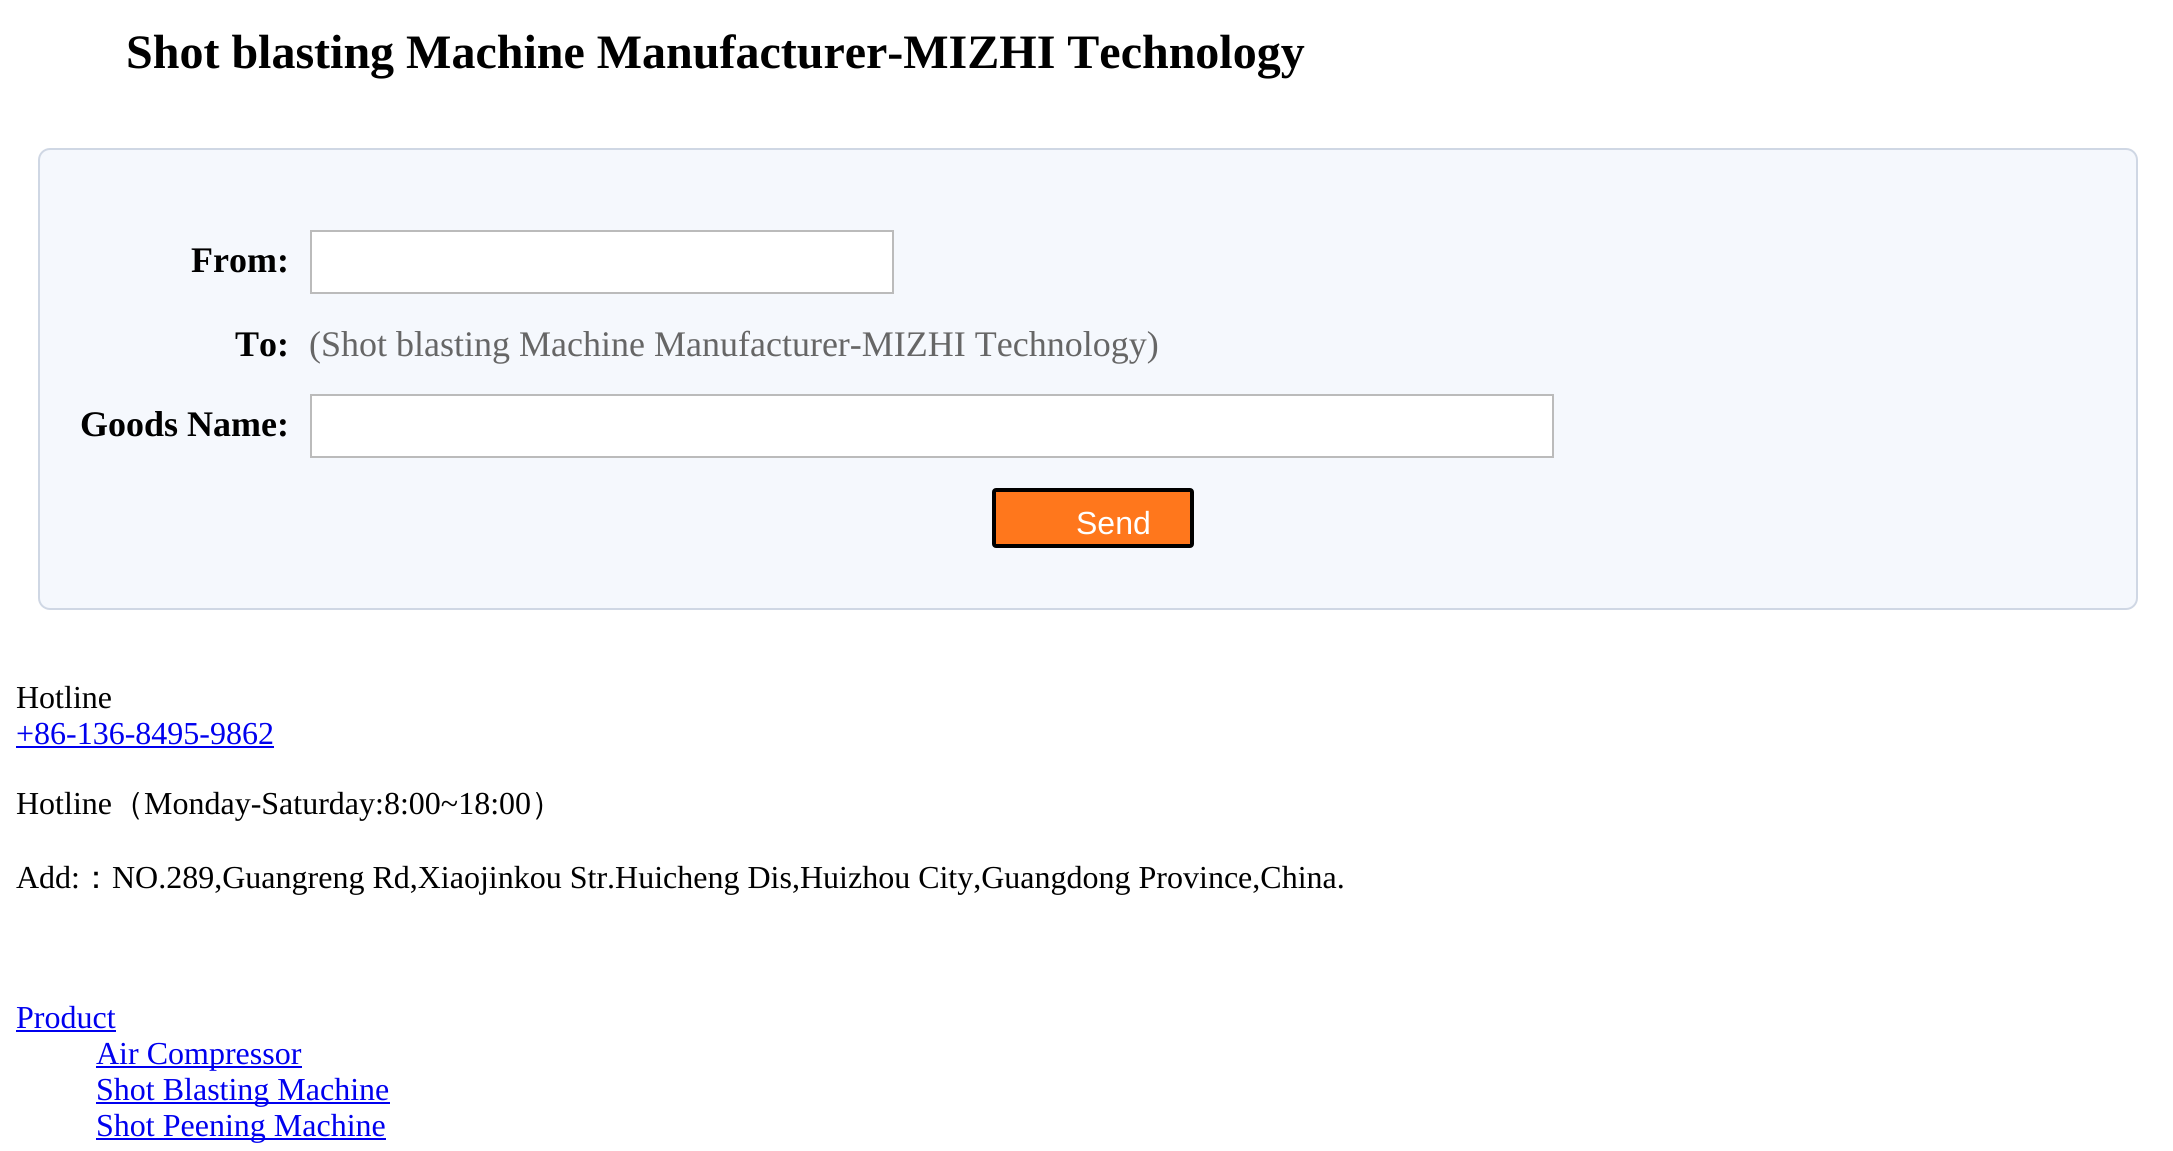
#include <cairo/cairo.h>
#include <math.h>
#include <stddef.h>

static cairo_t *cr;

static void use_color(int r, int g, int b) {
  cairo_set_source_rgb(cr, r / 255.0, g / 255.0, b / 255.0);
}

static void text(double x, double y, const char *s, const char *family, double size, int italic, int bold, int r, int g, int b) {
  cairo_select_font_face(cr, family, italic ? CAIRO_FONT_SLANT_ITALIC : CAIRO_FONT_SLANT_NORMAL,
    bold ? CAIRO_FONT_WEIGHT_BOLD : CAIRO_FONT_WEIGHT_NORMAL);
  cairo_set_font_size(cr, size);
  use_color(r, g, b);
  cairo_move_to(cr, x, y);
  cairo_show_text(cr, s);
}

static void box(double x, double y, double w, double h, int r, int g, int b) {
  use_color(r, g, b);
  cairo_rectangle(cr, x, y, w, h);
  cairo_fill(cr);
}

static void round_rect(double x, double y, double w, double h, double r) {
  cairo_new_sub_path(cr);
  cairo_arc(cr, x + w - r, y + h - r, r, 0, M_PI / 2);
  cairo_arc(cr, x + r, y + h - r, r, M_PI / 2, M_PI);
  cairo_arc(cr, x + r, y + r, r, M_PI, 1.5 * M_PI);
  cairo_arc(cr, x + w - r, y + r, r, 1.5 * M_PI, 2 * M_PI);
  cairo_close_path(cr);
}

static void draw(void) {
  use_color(255, 255, 255);
  cairo_paint(cr);
  use_color(245, 248, 253);
  round_rect(39, 149, 2098, 460, 11);
  cairo_fill_preserve(cr);
  use_color(207, 215, 228);
  cairo_stroke(cr);
  use_color(255, 255, 255);
  cairo_rectangle(cr, 311, 231, 582, 62);
  cairo_fill_preserve(cr);
  use_color(187, 187, 187);
  cairo_stroke(cr);
  use_color(255, 255, 255);
  cairo_rectangle(cr, 311, 395, 1242, 62);
  cairo_fill_preserve(cr);
  use_color(187, 187, 187);
  cairo_stroke(cr);
  use_color(255, 119, 28);
  round_rect(994, 490, 198, 56, 2);
  cairo_fill_preserve(cr);
  use_color(0, 0, 0);
  cairo_set_line_width(cr, 4);
  cairo_stroke(cr);
  box(16, 746, 258, 2, 0, 0, 238);
  box(16, 1030, 100, 2, 0, 0, 238);
  box(96, 1066, 206, 2, 0, 0, 238);
  box(96, 1102, 294, 2, 0, 0, 238);
  box(96, 1138, 290, 2, 0, 0, 238);
  text(126, 68, "Shot blasting Machine Manufacturer-MIZHI Technology", "Liberation Serif", 48, 0, 1, 0, 0, 0);
  text(191, 272, "From:", "Liberation Serif", 36, 0, 1, 0, 0, 0);
  text(235, 356, "To:", "Liberation Serif", 36, 0, 1, 0, 0, 0);
  text(309, 356, "(Shot blasting Machine Manufacturer-MIZHI Technology)", "Liberation Serif", 36, 0, 0, 102, 102, 102);
  text(80, 436, "Goods Name:", "Liberation Serif", 36, 0, 1, 0, 0, 0);
  text(1076, 534, "Send", "Liberation Sans", 32, 0, 0, 255, 255, 255);
  text(16, 708, "Hotline", "Liberation Serif", 32, 0, 0, 0, 0, 0);
  text(16, 744, "+86-136-8495-9862", "Liberation Serif", 32, 0, 0, 0, 0, 238);
  text(16, 814, "Hotline", "Liberation Serif", 32, 0, 0, 0, 0, 0);
  text(112, 814, "（", "WenQuanYi Zen Hei Medium", 32, 0, 0, 0, 0, 0);
  text(144, 814, "Monday-Saturday:8:00~18:00", "Liberation Serif", 32, 0, 0, 0, 0, 0);
  text(531, 814, "）", "WenQuanYi Zen Hei Medium", 32, 0, 0, 0, 0, 0);
  text(16, 888, "Add:", "Liberation Serif", 32, 0, 0, 0, 0, 0);
  text(80, 888, "：", "WenQuanYi Zen Hei Medium", 32, 0, 0, 0, 0, 0);
  text(112, 888, "NO.289,Guangreng Rd,Xiaojinkou Str.Huicheng Dis,Huizhou City,Guangdong Province,China.", "Liberation Serif", 32, 0, 0, 0, 0, 0);
  text(16, 1028, "Product", "Liberation Serif", 32, 0, 0, 0, 0, 238);
  text(96, 1064, "Air Compressor", "Liberation Serif", 32, 0, 0, 0, 0, 238);
  text(96, 1100, "Shot Blasting Machine", "Liberation Serif", 32, 0, 0, 0, 0, 238);
  text(96, 1136, "Shot Peening Machine", "Liberation Serif", 32, 0, 0, 0, 0, 238);
}

int main(void) {
  cairo_surface_t *surface = cairo_image_surface_create(CAIRO_FORMAT_RGB24, 2173, 1151);
  cr = cairo_create(surface);
  cairo_font_options_t *options = cairo_font_options_create();
  cairo_font_options_set_hint_metrics(options, CAIRO_HINT_METRICS_OFF);
  cairo_font_options_set_hint_style(options, CAIRO_HINT_STYLE_NONE);
  cairo_set_font_options(cr, options);
  cairo_set_miter_limit(cr, 4);
  draw();
  cairo_surface_write_to_png(surface, "out.png");
  cairo_font_options_destroy(options);
  cairo_destroy(cr);
  cairo_surface_destroy(surface);
  return 0;
}
